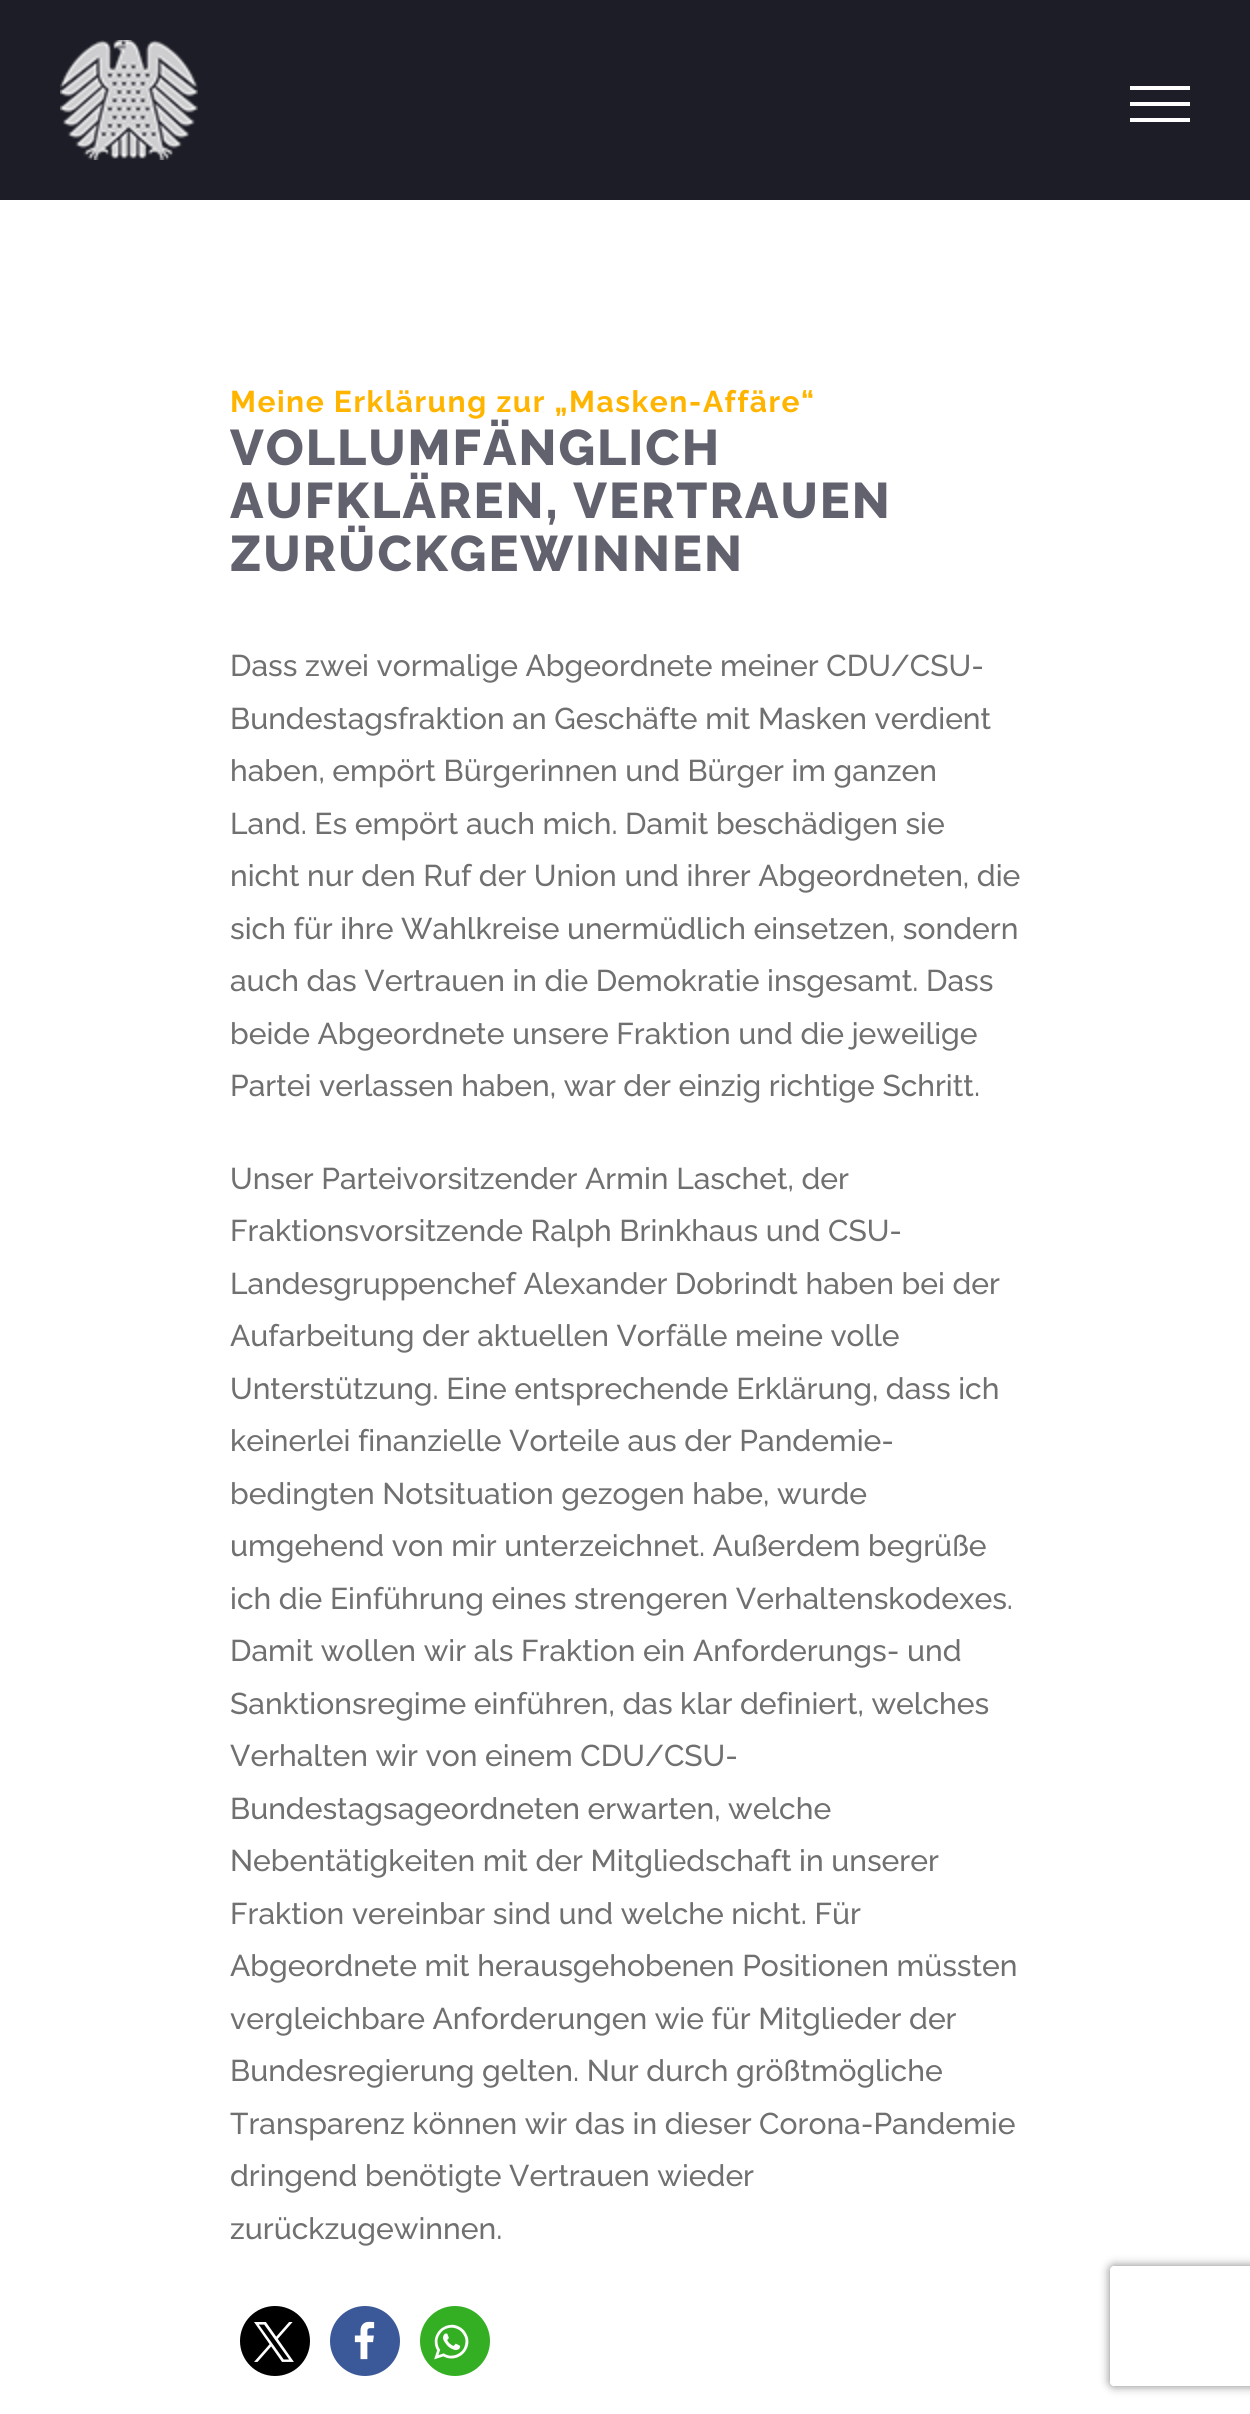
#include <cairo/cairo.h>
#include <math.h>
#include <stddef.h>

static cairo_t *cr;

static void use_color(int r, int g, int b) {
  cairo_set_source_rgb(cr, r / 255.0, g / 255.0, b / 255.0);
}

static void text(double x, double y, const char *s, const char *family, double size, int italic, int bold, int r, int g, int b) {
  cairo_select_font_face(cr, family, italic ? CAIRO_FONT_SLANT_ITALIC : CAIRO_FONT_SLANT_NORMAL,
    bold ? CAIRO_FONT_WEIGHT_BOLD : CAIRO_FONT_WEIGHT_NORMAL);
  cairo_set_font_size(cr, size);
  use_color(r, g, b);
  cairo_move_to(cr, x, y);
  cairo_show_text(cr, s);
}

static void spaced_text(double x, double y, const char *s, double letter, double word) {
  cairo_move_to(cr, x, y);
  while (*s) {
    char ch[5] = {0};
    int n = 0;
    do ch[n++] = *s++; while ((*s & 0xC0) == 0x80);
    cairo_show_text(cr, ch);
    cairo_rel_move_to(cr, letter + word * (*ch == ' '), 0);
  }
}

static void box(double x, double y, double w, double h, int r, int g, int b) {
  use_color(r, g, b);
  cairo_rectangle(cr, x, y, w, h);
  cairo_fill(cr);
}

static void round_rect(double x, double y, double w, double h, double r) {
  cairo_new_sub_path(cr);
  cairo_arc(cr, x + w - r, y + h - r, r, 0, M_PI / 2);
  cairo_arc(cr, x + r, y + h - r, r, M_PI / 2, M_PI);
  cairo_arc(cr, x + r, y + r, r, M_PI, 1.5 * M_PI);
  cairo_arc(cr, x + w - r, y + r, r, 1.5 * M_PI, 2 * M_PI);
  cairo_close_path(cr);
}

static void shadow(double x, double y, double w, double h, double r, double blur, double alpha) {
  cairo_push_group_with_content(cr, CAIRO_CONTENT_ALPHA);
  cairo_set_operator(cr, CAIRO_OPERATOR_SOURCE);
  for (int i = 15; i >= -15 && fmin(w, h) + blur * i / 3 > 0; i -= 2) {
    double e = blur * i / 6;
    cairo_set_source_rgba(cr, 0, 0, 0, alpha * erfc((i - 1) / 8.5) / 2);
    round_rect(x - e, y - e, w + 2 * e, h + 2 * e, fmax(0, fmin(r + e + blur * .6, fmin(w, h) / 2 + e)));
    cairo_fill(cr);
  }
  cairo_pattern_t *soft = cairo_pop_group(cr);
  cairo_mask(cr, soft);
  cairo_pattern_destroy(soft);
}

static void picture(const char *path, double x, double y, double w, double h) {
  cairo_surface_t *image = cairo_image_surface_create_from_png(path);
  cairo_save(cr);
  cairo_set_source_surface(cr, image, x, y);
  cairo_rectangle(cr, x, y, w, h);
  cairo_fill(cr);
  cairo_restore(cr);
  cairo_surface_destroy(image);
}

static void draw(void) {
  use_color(255, 255, 255);
  cairo_paint(cr);
  box(0, 0, 1250, 200, 29, 29, 39);
  picture("img_01.png", 60, 40, 138, 120);
  box(1130, 86, 60, 4, 255, 255, 255);
  box(1130, 102, 60, 4, 255, 255, 255);
  box(1130, 118, 60, 4, 255, 255, 255);
  use_color(0, 0, 0);
  cairo_arc(cr, 275, 2341, 35, 0, 2 * M_PI);
  cairo_fill(cr);
  picture("img_02.png", 254, 2322, 40, 40);
  use_color(59, 89, 152);
  cairo_arc(cr, 365, 2341, 35, 0, 2 * M_PI);
  cairo_fill(cr);
  picture("img_03.png", 354, 2321, 21, 39);
  use_color(52, 175, 35);
  cairo_arc(cr, 455, 2341, 35, 0, 2 * M_PI);
  cairo_fill(cr);
  picture("img_04.png", 434, 2324, 35, 36);
  cairo_save(cr);
  cairo_set_fill_rule(cr, CAIRO_FILL_RULE_EVEN_ODD);
  cairo_new_path(cr);
  cairo_move_to(cr, 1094, 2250);
  cairo_line_to(cr, 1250, 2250);
  cairo_line_to(cr, 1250, 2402);
  cairo_line_to(cr, 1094, 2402);
  cairo_close_path(cr);
  cairo_move_to(cr, 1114, 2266);
  cairo_line_to(cr, 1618, 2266);
  cairo_curve_to(cr, 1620, 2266, 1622, 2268, 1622, 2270);
  cairo_line_to(cr, 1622, 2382);
  cairo_curve_to(cr, 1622, 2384, 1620, 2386, 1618, 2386);
  cairo_line_to(cr, 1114, 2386);
  cairo_curve_to(cr, 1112, 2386, 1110, 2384, 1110, 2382);
  cairo_line_to(cr, 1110, 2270);
  cairo_curve_to(cr, 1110, 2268, 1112, 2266, 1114, 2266);
  cairo_close_path(cr);
  cairo_clip(cr);
  use_color(128, 128, 128);
  shadow(1110, 2266, 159, 120, 4, 5, 1);
  cairo_restore(cr);
  cairo_select_font_face(cr, "Raleway", CAIRO_FONT_SLANT_NORMAL, CAIRO_FONT_WEIGHT_BOLD);
  cairo_set_font_size(cr, 30);
  use_color(255, 180, 0);
  spaced_text(230, 412, "Meine Erklärung zur „Masken-Affäre“", 1.5, 0);
  cairo_select_font_face(cr, "Raleway ExtraBold", CAIRO_FONT_SLANT_NORMAL, CAIRO_FONT_WEIGHT_NORMAL);
  cairo_set_font_size(cr, 50);
  use_color(98, 98, 111);
  spaced_text(230, 465, "VOLLUMFÄNGLICH", 2, 0);
  spaced_text(230, 518, "AUFKLÄREN, VERTRAUEN", 2, 0);
  spaced_text(230, 571, "ZURÜCKGEWINNEN", 2, 0);
  text(230, 676, "Dass zwei vormalige Abgeordnete meiner CDU/CSU-", "Raleway Medium", 30, 0, 0, 112, 112, 112);
  text(230, 729, "Bundestagsfraktion an Geschäfte mit Masken verdient", "Raleway Medium", 30, 0, 0, 112, 112, 112);
  text(230, 781, "haben, empört Bürgerinnen und Bürger im ganzen", "Raleway Medium", 30, 0, 0, 112, 112, 112);
  text(230, 834, "Land. Es empört auch mich. Damit beschädigen sie", "Raleway Medium", 30, 0, 0, 112, 112, 112);
  text(230, 886, "nicht nur den Ruf der Union und ihrer Abgeordneten, die", "Raleway Medium", 30, 0, 0, 112, 112, 112);
  text(230, 939, "sich für ihre Wahlkreise unermüdlich einsetzen, sondern", "Raleway Medium", 30, 0, 0, 112, 112, 112);
  text(230, 991, "auch das Vertrauen in die Demokratie insgesamt. Dass", "Raleway Medium", 30, 0, 0, 112, 112, 112);
  text(230, 1044, "beide Abgeordnete unsere Fraktion und die jeweilige", "Raleway Medium", 30, 0, 0, 112, 112, 112);
  text(230, 1096, "Partei verlassen haben, war der einzig richtige Schritt.", "Raleway Medium", 30, 0, 0, 112, 112, 112);
  text(230, 1189, "Unser Parteivorsitzender Armin Laschet, der", "Raleway Medium", 30, 0, 0, 112, 112, 112);
  text(230, 1241, "Fraktionsvorsitzende Ralph Brinkhaus und CSU-", "Raleway Medium", 30, 0, 0, 112, 112, 112);
  text(230, 1294, "Landesgruppenchef Alexander Dobrindt haben bei der", "Raleway Medium", 30, 0, 0, 112, 112, 112);
  text(230, 1346, "Aufarbeitung der aktuellen Vorfälle meine volle", "Raleway Medium", 30, 0, 0, 112, 112, 112);
  text(230, 1399, "Unterstützung. Eine entsprechende Erklärung, dass ich", "Raleway Medium", 30, 0, 0, 112, 112, 112);
  text(230, 1451, "keinerlei finanzielle Vorteile aus der Pandemie-", "Raleway Medium", 30, 0, 0, 112, 112, 112);
  text(230, 1504, "bedingten Notsituation gezogen habe, wurde", "Raleway Medium", 30, 0, 0, 112, 112, 112);
  text(230, 1556, "umgehend von mir unterzeichnet. Außerdem begrüße", "Raleway Medium", 30, 0, 0, 112, 112, 112);
  text(230, 1609, "ich die Einführung eines strengeren Verhaltenskodexes.", "Raleway Medium", 30, 0, 0, 112, 112, 112);
  text(230, 1661, "Damit wollen wir als Fraktion ein Anforderungs- und", "Raleway Medium", 30, 0, 0, 112, 112, 112);
  text(230, 1714, "Sanktionsregime einführen, das klar definiert, welches", "Raleway Medium", 30, 0, 0, 112, 112, 112);
  text(230, 1766, "Verhalten wir von einem CDU/CSU-", "Raleway Medium", 30, 0, 0, 112, 112, 112);
  text(230, 1819, "Bundestagsageordneten erwarten, welche", "Raleway Medium", 30, 0, 0, 112, 112, 112);
  text(230, 1871, "Nebentätigkeiten mit der Mitgliedschaft in unserer", "Raleway Medium", 30, 0, 0, 112, 112, 112);
  text(230, 1924, "Fraktion vereinbar sind und welche nicht. Für", "Raleway Medium", 30, 0, 0, 112, 112, 112);
  text(230, 1976, "Abgeordnete mit herausgehobenen Positionen müssten", "Raleway Medium", 30, 0, 0, 112, 112, 112);
  text(230, 2029, "vergleichbare Anforderungen wie für Mitglieder der", "Raleway Medium", 30, 0, 0, 112, 112, 112);
  text(230, 2081, "Bundesregierung gelten. Nur durch größtmögliche", "Raleway Medium", 30, 0, 0, 112, 112, 112);
  text(230, 2134, "Transparenz können wir das in dieser Corona-Pandemie", "Raleway Medium", 30, 0, 0, 112, 112, 112);
  text(230, 2186, "dringend benötigte Vertrauen wieder", "Raleway Medium", 30, 0, 0, 112, 112, 112);
  text(230, 2239, "zurückzugewinnen.", "Raleway Medium", 30, 0, 0, 112, 112, 112);
}

int main(void) {
  cairo_surface_t *surface = cairo_image_surface_create(CAIRO_FORMAT_RGB24, 1250, 2414);
  cr = cairo_create(surface);
  cairo_font_options_t *options = cairo_font_options_create();
  cairo_font_options_set_hint_metrics(options, CAIRO_HINT_METRICS_OFF);
  cairo_font_options_set_hint_style(options, CAIRO_HINT_STYLE_NONE);
  cairo_set_font_options(cr, options);
  cairo_set_miter_limit(cr, 4);
  draw();
  cairo_surface_write_to_png(surface, "out.png");
  cairo_font_options_destroy(options);
  cairo_destroy(cr);
  cairo_surface_destroy(surface);
  return 0;
}
